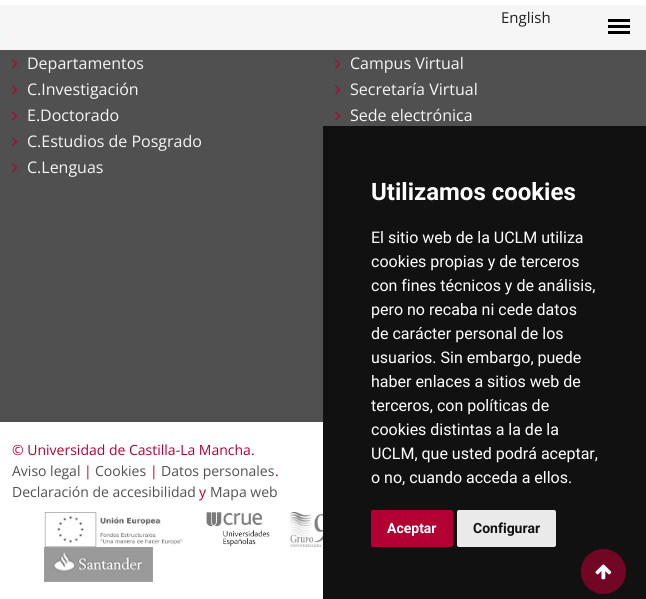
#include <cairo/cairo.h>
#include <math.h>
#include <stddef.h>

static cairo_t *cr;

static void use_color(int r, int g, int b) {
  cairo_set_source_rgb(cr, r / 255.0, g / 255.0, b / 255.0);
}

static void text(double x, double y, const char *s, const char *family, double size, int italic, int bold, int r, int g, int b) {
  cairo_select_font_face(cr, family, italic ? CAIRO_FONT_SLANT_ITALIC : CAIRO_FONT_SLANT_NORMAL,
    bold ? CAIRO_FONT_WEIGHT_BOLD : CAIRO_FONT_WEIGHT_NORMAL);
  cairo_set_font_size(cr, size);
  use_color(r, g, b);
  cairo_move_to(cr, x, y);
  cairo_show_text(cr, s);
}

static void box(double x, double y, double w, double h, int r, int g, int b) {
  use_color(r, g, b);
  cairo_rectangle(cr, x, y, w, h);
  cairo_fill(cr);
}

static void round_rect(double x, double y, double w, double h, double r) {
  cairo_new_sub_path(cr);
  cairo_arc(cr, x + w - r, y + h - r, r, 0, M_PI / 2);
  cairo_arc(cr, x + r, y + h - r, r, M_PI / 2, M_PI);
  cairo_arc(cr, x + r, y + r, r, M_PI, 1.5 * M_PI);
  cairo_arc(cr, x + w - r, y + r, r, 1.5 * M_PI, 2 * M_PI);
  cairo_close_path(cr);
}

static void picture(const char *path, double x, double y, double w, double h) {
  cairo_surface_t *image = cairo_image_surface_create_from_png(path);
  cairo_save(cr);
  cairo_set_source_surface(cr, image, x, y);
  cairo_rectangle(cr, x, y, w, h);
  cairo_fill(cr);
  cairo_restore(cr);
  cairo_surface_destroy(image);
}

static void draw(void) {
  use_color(255, 255, 255);
  cairo_paint(cr);
  box(0, 5, 646, 45, 246, 246, 246);
  box(608, 19, 22, 3, 0, 0, 0);
  box(608, 25, 22, 3, 0, 0, 0);
  box(608, 31, 22, 3, 0, 0, 0);
  box(0, 50, 646, 372, 80, 80, 80);
  picture("img_01.png", 12, 33, 6, 10);
  picture("img_02.png", 12, 59, 6, 10);
  picture("img_02.png", 12, 85, 6, 10);
  picture("img_02.png", 12, 111, 6, 10);
  picture("img_02.png", 12, 137, 6, 10);
  picture("img_02.png", 12, 163, 6, 10);
  picture("img_01.png", 335, 33, 6, 10);
  picture("img_02.png", 335, 59, 6, 10);
  picture("img_02.png", 335, 85, 6, 10);
  picture("img_02.png", 335, 111, 6, 10);
  picture("img_03.png", 44, 512, 139, 35);
  picture("img_04.png", 206, 512, 64, 35);
  picture("img_05.png", 290, 512, 33, 35);
  picture("img_06.png", 44, 547, 109, 35);
  box(323, 126, 323, 473, 17, 17, 17);
  use_color(179, 0, 51);
  round_rect(371, 510, 82, 37, 2);
  cairo_fill(cr);
  use_color(234, 234, 234);
  round_rect(457, 510, 99, 37, 2);
  cairo_fill(cr);
  use_color(114, 7, 37);
  cairo_arc(cr, 603.5, 571.5, 22.5, 0, 2 * M_PI);
  cairo_fill(cr);
  picture("img_07.png", 595, 564, 17, 16);
  text(501, 23, "English", "Open Sans", 15, 0, 0, 33, 33, 33);
  text(27, 69, "Departamentos", "Open Sans", 16, 0, 0, 245, 245, 245);
  text(27, 95, "C.Investigación", "Open Sans", 16, 0, 0, 245, 245, 245);
  text(27, 121, "E.Doctorado", "Open Sans", 16, 0, 0, 245, 245, 245);
  text(27, 147, "C.Estudios de Posgrado", "Open Sans", 16, 0, 0, 245, 245, 245);
  text(27, 173, "C.Lenguas", "Open Sans", 16, 0, 0, 245, 245, 245);
  text(350, 69, "Campus Virtual", "Open Sans", 16, 0, 0, 245, 245, 245);
  text(350, 95, "Secretaría Virtual", "Open Sans", 16, 0, 0, 245, 245, 245);
  text(350, 121, "Sede electrónica", "Open Sans", 16, 0, 0, 245, 245, 245);
  text(12, 455, "© Universidad de Castilla-La Mancha.", "Open Sans", 14, 0, 0, 179, 0, 51);
  text(12, 476, "Aviso legal", "Open Sans", 14, 0, 0, 80, 80, 80);
  text(84, 476, "|", "Open Sans", 14, 0, 0, 179, 0, 51);
  text(95, 476, "Cookies", "Open Sans", 14, 0, 0, 80, 80, 80);
  text(150, 476, "|", "Open Sans", 14, 0, 0, 179, 0, 51);
  text(161, 476, "Datos personales", "Open Sans", 14, 0, 0, 80, 80, 80);
  text(275, 476, ".", "Open Sans", 14, 0, 0, 179, 0, 51);
  text(12, 497, "Declaración de accesibilidad", "Open Sans", 14, 0, 0, 80, 80, 80);
  text(199, 497, "y", "Open Sans", 14, 0, 0, 179, 0, 51);
  text(210, 497, "Mapa web", "Open Sans", 14, 0, 0, 80, 80, 80);
  text(371, 200, "Utilizamos cookies", "Roboto", 24, 0, 1, 255, 255, 255);
  text(371, 243, "El sitio web de la UCLM utiliza", "Roboto", 16, 0, 0, 255, 255, 255);
  text(371, 267, "cookies propias y de terceros", "Roboto", 16, 0, 0, 255, 255, 255);
  text(371, 291, "con fines técnicos y de análisis,", "Roboto", 16, 0, 0, 255, 255, 255);
  text(371, 315, "pero no recaba ni cede datos", "Roboto", 16, 0, 0, 255, 255, 255);
  text(371, 339, "de carácter personal de los", "Roboto", 16, 0, 0, 255, 255, 255);
  text(371, 363, "usuarios. Sin embargo, puede", "Roboto", 16, 0, 0, 255, 255, 255);
  text(371, 387, "haber enlaces a sitios web de", "Roboto", 16, 0, 0, 255, 255, 255);
  text(371, 411, "terceros, con políticas de", "Roboto", 16, 0, 0, 255, 255, 255);
  text(371, 435, "cookies distintas a la de la", "Roboto", 16, 0, 0, 255, 255, 255);
  text(371, 459, "UCLM, que usted podrá aceptar,", "Roboto", 16, 0, 0, 255, 255, 255);
  text(371, 483, "o no, cuando acceda a ellos.", "Roboto", 16, 0, 0, 255, 255, 255);
  text(387, 533, "Aceptar", "Roboto", 14, 0, 1, 255, 255, 255);
  text(473, 533, "Configurar", "Roboto", 14, 0, 1, 17, 17, 17);
}

int main(void) {
  cairo_surface_t *surface = cairo_image_surface_create(CAIRO_FORMAT_RGB24, 646, 599);
  cr = cairo_create(surface);
  cairo_font_options_t *options = cairo_font_options_create();
  cairo_font_options_set_hint_metrics(options, CAIRO_HINT_METRICS_OFF);
  cairo_font_options_set_hint_style(options, CAIRO_HINT_STYLE_NONE);
  cairo_set_font_options(cr, options);
  cairo_set_miter_limit(cr, 4);
  draw();
  cairo_surface_write_to_png(surface, "out.png");
  cairo_font_options_destroy(options);
  cairo_destroy(cr);
  cairo_surface_destroy(surface);
  return 0;
}
